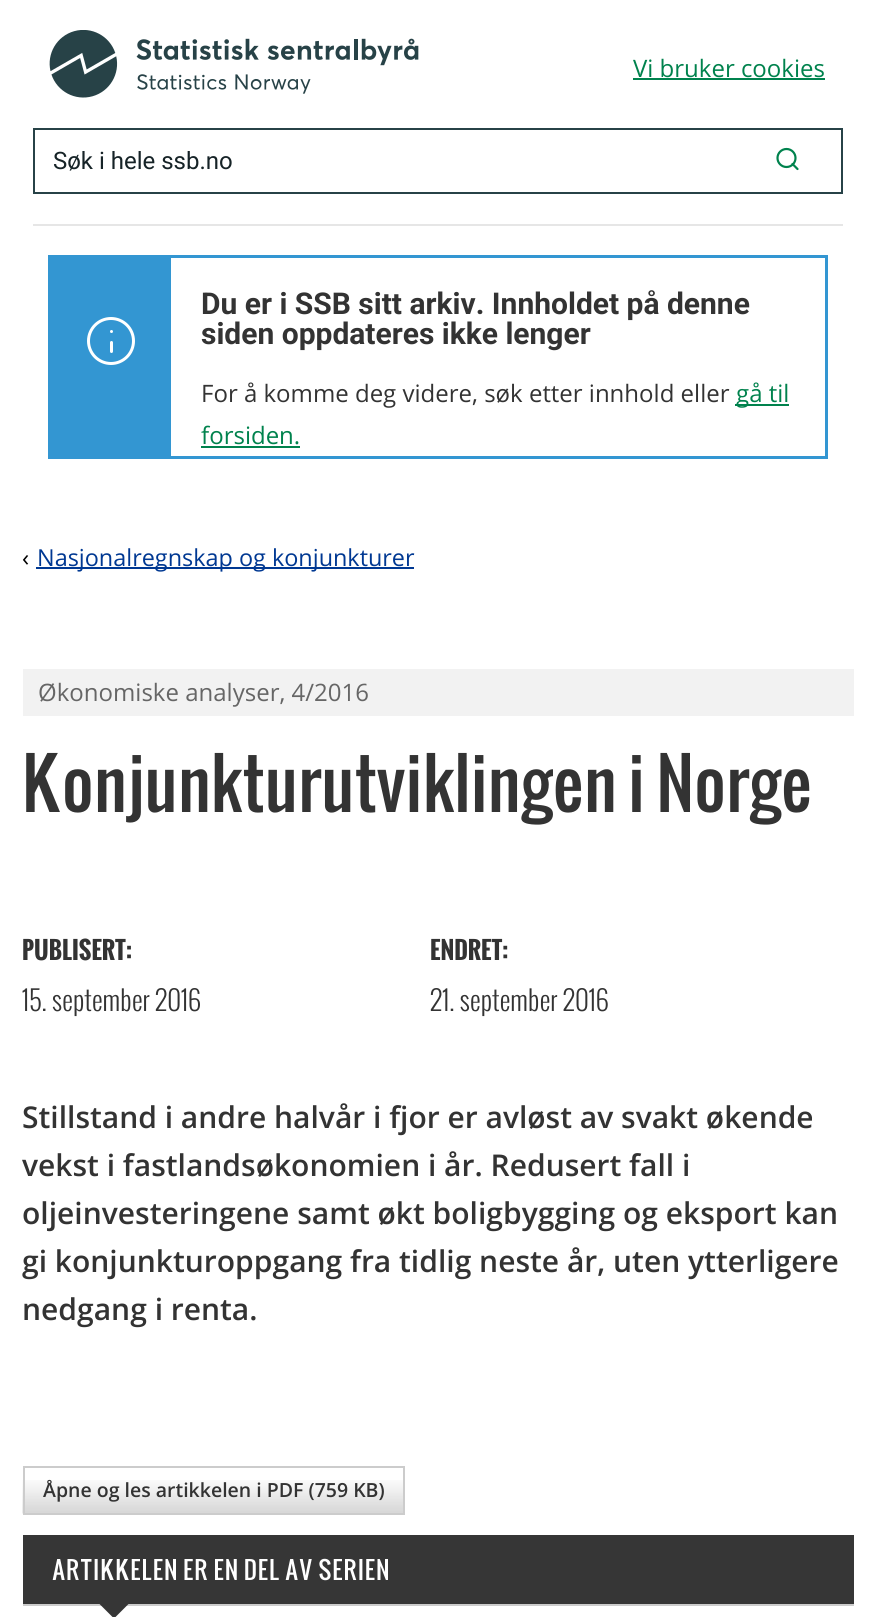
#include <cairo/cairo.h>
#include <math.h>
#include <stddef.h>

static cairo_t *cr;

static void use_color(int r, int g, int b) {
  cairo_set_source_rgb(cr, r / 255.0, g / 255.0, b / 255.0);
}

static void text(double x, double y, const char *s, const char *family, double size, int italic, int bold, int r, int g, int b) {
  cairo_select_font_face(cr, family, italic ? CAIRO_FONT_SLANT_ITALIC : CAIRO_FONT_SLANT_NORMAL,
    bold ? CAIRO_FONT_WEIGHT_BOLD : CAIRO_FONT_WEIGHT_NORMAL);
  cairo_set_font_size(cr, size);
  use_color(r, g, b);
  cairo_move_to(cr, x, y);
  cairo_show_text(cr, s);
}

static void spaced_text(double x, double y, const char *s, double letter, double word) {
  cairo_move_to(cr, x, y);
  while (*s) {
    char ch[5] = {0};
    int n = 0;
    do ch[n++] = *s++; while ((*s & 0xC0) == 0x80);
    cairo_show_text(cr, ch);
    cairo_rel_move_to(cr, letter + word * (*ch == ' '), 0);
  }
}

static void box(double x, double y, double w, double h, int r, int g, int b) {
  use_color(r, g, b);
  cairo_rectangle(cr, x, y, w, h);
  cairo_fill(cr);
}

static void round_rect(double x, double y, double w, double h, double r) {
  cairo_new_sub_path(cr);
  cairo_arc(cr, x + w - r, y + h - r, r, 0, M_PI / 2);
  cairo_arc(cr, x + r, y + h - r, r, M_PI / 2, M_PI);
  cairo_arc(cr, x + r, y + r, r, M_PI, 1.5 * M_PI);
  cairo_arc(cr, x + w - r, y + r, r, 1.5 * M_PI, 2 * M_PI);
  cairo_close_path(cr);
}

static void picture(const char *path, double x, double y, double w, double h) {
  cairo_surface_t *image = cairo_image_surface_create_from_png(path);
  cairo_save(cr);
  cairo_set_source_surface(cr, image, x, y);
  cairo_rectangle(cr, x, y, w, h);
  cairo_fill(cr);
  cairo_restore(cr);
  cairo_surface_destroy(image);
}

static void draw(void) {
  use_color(255, 255, 255);
  cairo_paint(cr);
  picture("img_01.png", 49, 30, 370, 68);
  box(633, 78, 192, 2, 0, 130, 77);
  cairo_rectangle(cr, 34, 129, 808, 64);
  use_color(39, 66, 71);
  cairo_stroke(cr);
  cairo_arc(cr, 786.5, 158, 9, 0, 2 * M_PI);
  use_color(0, 130, 77);
  cairo_set_line_width(cr, 2.2);
  cairo_stroke(cr);
  cairo_new_path(cr);
  cairo_move_to(cr, 797.5, 169);
  cairo_line_to(cr, 792.5, 164);
  cairo_set_line_cap(cr, CAIRO_LINE_CAP_ROUND);
  cairo_set_line_join(cr, CAIRO_LINE_JOIN_ROUND);
  cairo_stroke(cr);
  box(33, 224, 810, 2, 230, 230, 230);
  cairo_rectangle(cr, 49.5, 256.5, 777, 201);
  use_color(51, 150, 210);
  cairo_set_line_width(cr, 3);
  cairo_set_line_cap(cr, CAIRO_LINE_CAP_BUTT);
  cairo_set_line_join(cr, CAIRO_LINE_JOIN_MITER);
  cairo_stroke(cr);
  box(51, 258, 120, 198, 51, 150, 210);
  cairo_arc(cr, 111, 341, 22.5, 0, 2 * M_PI);
  use_color(255, 255, 255);
  cairo_stroke(cr);
  cairo_arc(cr, 111.5, 331.5, 1.5, 0, 2 * M_PI);
  cairo_fill(cr);
  round_rect(110, 341, 3, 12, 1.5);
  cairo_fill(cr);
  box(735, 404, 54, 2, 0, 130, 77);
  box(201, 446, 99, 2, 0, 130, 77);
  box(36, 567, 378, 2, 0, 56, 146);
  box(23, 669, 831, 47, 242, 242, 242);
  picture("img_02.png", 22, 1480, 381, 34);
  cairo_rectangle(cr, 24, 1467, 380, 47);
  use_color(204, 204, 204);
  cairo_set_line_width(cr, 2);
  cairo_stroke(cr);
  box(23, 1535, 831, 69, 54, 54, 54);
  box(23, 1604, 831, 2, 204, 204, 204);
  use_color(54, 54, 54);
  cairo_new_path(cr);
  cairo_move_to(cr, 99, 1603.5);
  cairo_line_to(cr, 129, 1603.5);
  cairo_line_to(cr, 114, 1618.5);
  cairo_close_path(cr);
  cairo_fill(cr);
  text(633, 77, "Vi bruker cookies", "Open Sans", 24, 0, 0, 0, 130, 77);
  text(53, 169, "Søk i hele ssb.no", "Roboto", 24, 0, 0, 22, 35, 39);
  text(201, 314, "Du er i SSB sitt arkiv. Innholdet på denne", "Roboto", 30, 0, 1, 51, 51, 51);
  text(201, 344, "siden oppdateres ikke lenger", "Roboto", 30, 0, 1, 51, 51, 51);
  text(201, 402, "For å komme deg videre, søk etter innhold eller", "Open Sans", 24, 0, 0, 51, 51, 51);
  text(736, 402, "gå til", "Open Sans", 24, 0, 0, 0, 130, 77);
  text(201, 444, "forsiden.", "Open Sans", 24, 0, 0, 0, 130, 77);
  text(22, 566, "‹", "Open Sans", 23.4, 0, 0, 0, 0, 0);
  text(37, 566, "Nasjonalregnskap og konjunkturer", "Open Sans", 23.4, 0, 0, 0, 56, 146);
  text(38, 701, "Økonomiske analyser, 4/2016", "Open Sans", 24, 0, 0, 102, 102, 102);
  text(22, 812, "Konjunkturutviklingen i Norge", "Oswald", 67.5, 0, 0, 51, 51, 51);
  text(22, 960, "PUBLISERT:", "Oswald", 24, 0, 1, 51, 51, 51);
  text(22, 1011, "15. september 2016", "Oswald Light", 27, 0, 0, 51, 51, 51);
  text(430, 960, "ENDRET:", "Oswald", 24, 0, 1, 51, 51, 51);
  text(430, 1011, "21. september 2016", "Oswald Light", 27, 0, 0, 51, 51, 51);
  text(22, 1128, "Stillstand i andre halvår i fjor er avløst av svakt økende", "Open Sans SemiBold", 30, 0, 0, 51, 51, 51);
  text(22, 1176, "vekst i fastlandsøkonomien i år. Redusert fall i", "Open Sans SemiBold", 30, 0, 0, 51, 51, 51);
  text(22, 1224, "oljeinvesteringene samt økt boligbygging og eksport kan", "Open Sans SemiBold", 30, 0, 0, 51, 51, 51);
  text(22, 1272, "gi konjunkturoppgang fra tidlig neste år, uten ytterligere", "Open Sans SemiBold", 30, 0, 0, 51, 51, 51);
  text(22, 1320, "nedgang i renta.", "Open Sans SemiBold", 30, 0, 0, 51, 51, 51);
  text(43, 1497, "Åpne og les artikkelen i PDF (759 KB)", "Open Sans SemiBold", 19.5, 0, 0, 51, 51, 51);
  cairo_select_font_face(cr, "Oswald", CAIRO_FONT_SLANT_NORMAL, CAIRO_FONT_WEIGHT_NORMAL);
  cairo_set_font_size(cr, 24);
  use_color(255, 255, 255);
  spaced_text(52, 1580, "ARTIKKELEN ER EN DEL AV SERIEN", 0.75, 0);
}

int main(void) {
  cairo_surface_t *surface = cairo_image_surface_create(CAIRO_FORMAT_RGB24, 876, 1617);
  cr = cairo_create(surface);
  cairo_font_options_t *options = cairo_font_options_create();
  cairo_font_options_set_hint_metrics(options, CAIRO_HINT_METRICS_OFF);
  cairo_font_options_set_hint_style(options, CAIRO_HINT_STYLE_NONE);
  cairo_set_font_options(cr, options);
  cairo_set_miter_limit(cr, 4);
  draw();
  cairo_surface_write_to_png(surface, "out.png");
  cairo_font_options_destroy(options);
  cairo_destroy(cr);
  cairo_surface_destroy(surface);
  return 0;
}
